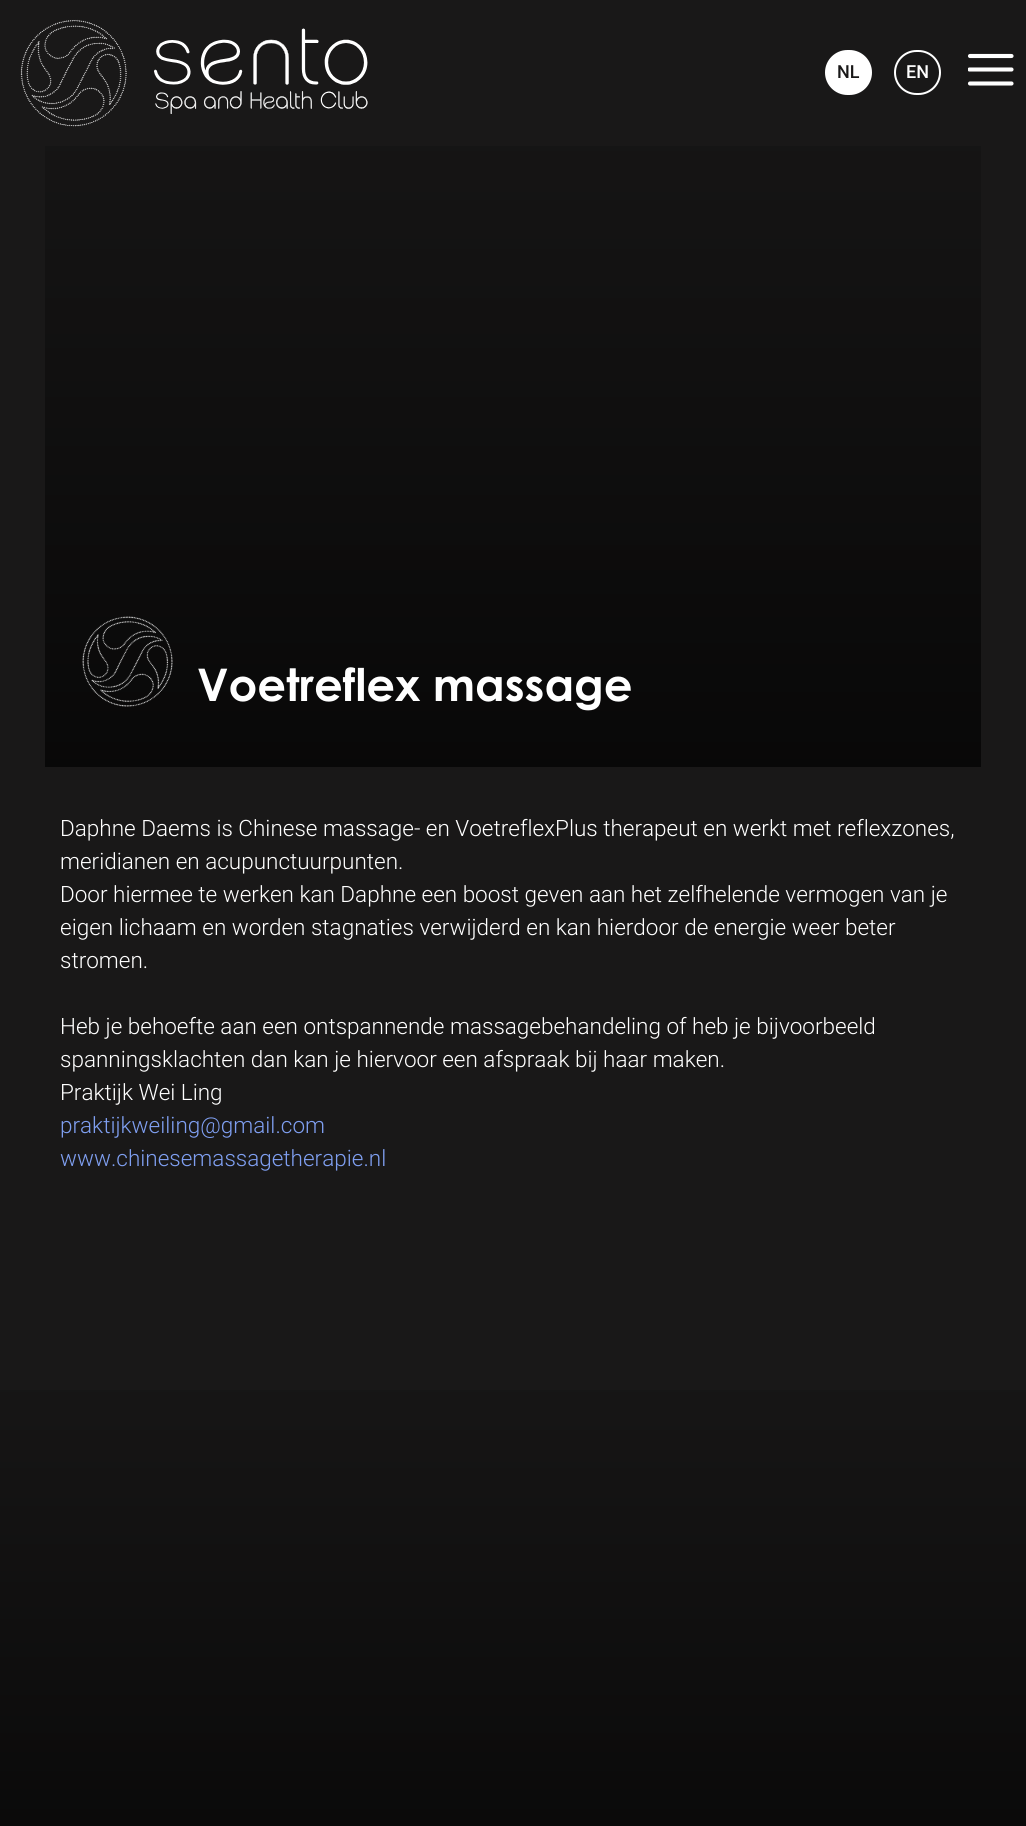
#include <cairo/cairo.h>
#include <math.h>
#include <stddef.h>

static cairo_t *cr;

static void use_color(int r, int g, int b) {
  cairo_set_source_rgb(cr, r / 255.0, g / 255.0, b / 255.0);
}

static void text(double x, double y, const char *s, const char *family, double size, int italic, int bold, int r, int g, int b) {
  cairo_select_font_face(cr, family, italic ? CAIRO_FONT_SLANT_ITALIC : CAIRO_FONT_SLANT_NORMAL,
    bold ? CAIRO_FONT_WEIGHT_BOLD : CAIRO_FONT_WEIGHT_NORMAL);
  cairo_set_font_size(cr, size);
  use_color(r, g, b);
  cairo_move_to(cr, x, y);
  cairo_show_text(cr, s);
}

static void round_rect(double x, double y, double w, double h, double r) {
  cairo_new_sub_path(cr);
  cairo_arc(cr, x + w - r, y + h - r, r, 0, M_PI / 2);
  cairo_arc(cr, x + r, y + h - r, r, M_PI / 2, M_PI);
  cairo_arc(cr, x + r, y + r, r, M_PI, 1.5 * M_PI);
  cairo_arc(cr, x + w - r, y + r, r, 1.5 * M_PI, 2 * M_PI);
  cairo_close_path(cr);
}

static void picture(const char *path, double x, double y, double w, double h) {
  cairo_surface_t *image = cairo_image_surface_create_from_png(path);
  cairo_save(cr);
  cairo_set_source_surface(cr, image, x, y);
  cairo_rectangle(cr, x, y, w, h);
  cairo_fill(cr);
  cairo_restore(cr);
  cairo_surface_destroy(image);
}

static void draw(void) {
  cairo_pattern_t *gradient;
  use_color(25, 24, 24);
  cairo_paint(cr);
  picture("img_01.png", 20, 19, 348, 108);
  use_color(255, 255, 255);
  round_rect(826, 51, 45, 43, 21.5);
  cairo_fill_preserve(cr);
  cairo_stroke(cr);
  round_rect(895, 51, 45, 43, 21.5);
  cairo_stroke(cr);
  cairo_new_path(cr);
  cairo_move_to(cr, 970, 56);
  cairo_line_to(cr, 1011.5, 56);
  cairo_set_line_width(cr, 4.1);
  cairo_set_line_cap(cr, CAIRO_LINE_CAP_ROUND);
  cairo_stroke(cr);
  cairo_save(cr);
  cairo_rectangle(cr, 968, 47, 46, 46);
  cairo_clip(cr);
  cairo_new_path(cr);
  cairo_move_to(cr, 969.5, 69.5);
  cairo_line_to(cr, 1011.5, 69.5);
  cairo_stroke(cr);
  cairo_restore(cr);
  cairo_new_path(cr);
  cairo_move_to(cr, 970, 83.5);
  cairo_line_to(cr, 1011.5, 83.5);
  cairo_stroke(cr);
  gradient = cairo_pattern_create_linear(513, -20, 513, 1160);
  cairo_pattern_add_color_stop_rgba(gradient, 0, 0.098, 0.094, 0.094, 1);
  cairo_pattern_add_color_stop_rgba(gradient, 1, 0, 0, 0, 1);
  cairo_set_source(cr, gradient);
  cairo_pattern_destroy(gradient);
  cairo_rectangle(cr, 45, 146, 936, 621);
  cairo_fill(cr);
  picture("img_02.png", 82, 616, 91, 91);
  gradient = cairo_pattern_create_linear(513, 1299, 513, 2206);
  cairo_pattern_add_color_stop_rgba(gradient, 0, 0.098, 0.094, 0.094, 1);
  cairo_pattern_add_color_stop_rgba(gradient, 1, 0, 0, 0, 1);
  cairo_set_source(cr, gradient);
  cairo_pattern_destroy(gradient);
  cairo_rectangle(cr, 0, 1390, 1026, 436);
  cairo_fill(cr);
  text(837, 78, "NL", "Roboto Medium", 18, 0, 0, 25, 24, 24);
  text(906, 78, "EN", "Roboto Medium", 18, 0, 0, 255, 255, 255);
  text(197, 701, "Voetreflex massage", "Century Gothic", 45, 0, 1, 255, 255, 255);
  text(60, 836, "Daphne Daems is Chinese massage- en VoetreflexPlus therapeut en werkt met reflexzones,", "Roboto Light", 22.5, 0, 0, 255, 255, 255);
  text(60, 869, "meridianen en acupunctuurpunten.", "Roboto Light", 22.5, 0, 0, 255, 255, 255);
  text(60, 902, "Door hiermee te werken kan Daphne een boost geven aan het zelfhelende vermogen van je", "Roboto Light", 22.5, 0, 0, 255, 255, 255);
  text(60, 935, "eigen lichaam en worden stagnaties verwijderd en kan hierdoor de energie weer beter", "Roboto Light", 22.5, 0, 0, 255, 255, 255);
  text(60, 968, "stromen.", "Roboto Light", 22.5, 0, 0, 255, 255, 255);
  text(60, 1034, "Heb je behoefte aan een ontspannende massagebehandeling of heb je bijvoorbeeld", "Roboto Light", 22.5, 0, 0, 255, 255, 255);
  text(60, 1067, "spanningsklachten dan kan je hiervoor een afspraak bij haar maken.", "Roboto Light", 22.5, 0, 0, 255, 255, 255);
  text(60, 1100, "Praktijk Wei Ling", "Roboto Light", 22.5, 0, 0, 255, 255, 255);
  text(60, 1133, "praktijkweiling@gmail.com", "Roboto Light", 22.5, 0, 0, 127, 159, 241);
  text(60, 1166, "www.chinesemassagetherapie.nl", "Roboto Light", 22.5, 0, 0, 127, 159, 241);
}

int main(void) {
  cairo_surface_t *surface = cairo_image_surface_create(CAIRO_FORMAT_RGB24, 1026, 1826);
  cr = cairo_create(surface);
  cairo_font_options_t *options = cairo_font_options_create();
  cairo_font_options_set_hint_metrics(options, CAIRO_HINT_METRICS_OFF);
  cairo_font_options_set_hint_style(options, CAIRO_HINT_STYLE_NONE);
  cairo_set_font_options(cr, options);
  cairo_set_miter_limit(cr, 4);
  draw();
  cairo_surface_write_to_png(surface, "out.png");
  cairo_font_options_destroy(options);
  cairo_destroy(cr);
  cairo_surface_destroy(surface);
  return 0;
}
